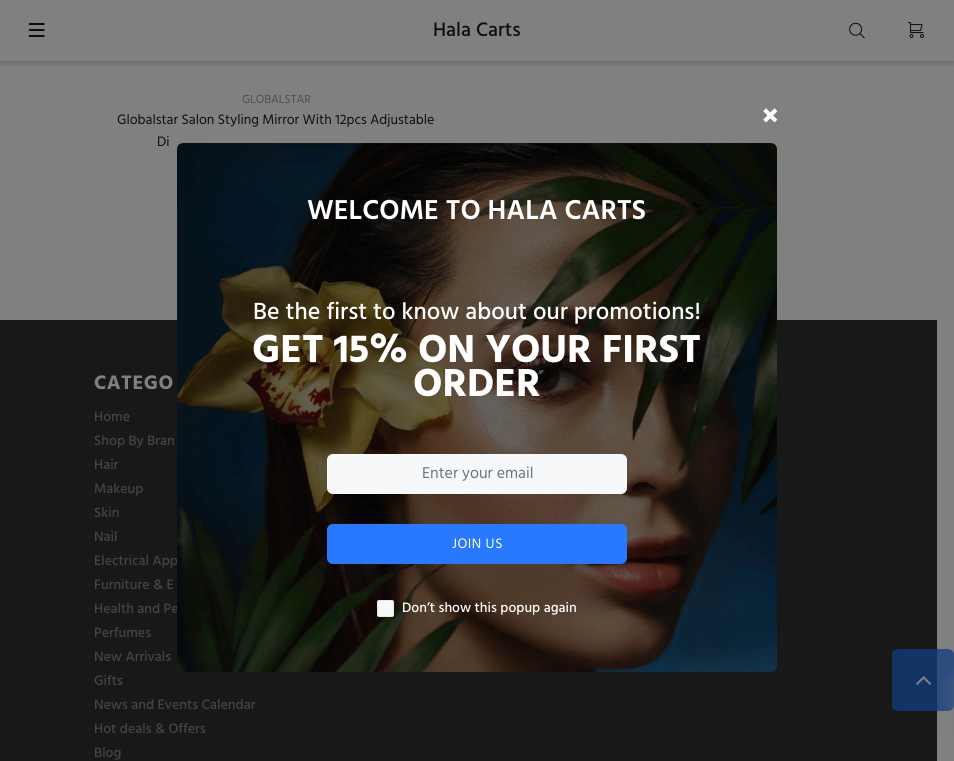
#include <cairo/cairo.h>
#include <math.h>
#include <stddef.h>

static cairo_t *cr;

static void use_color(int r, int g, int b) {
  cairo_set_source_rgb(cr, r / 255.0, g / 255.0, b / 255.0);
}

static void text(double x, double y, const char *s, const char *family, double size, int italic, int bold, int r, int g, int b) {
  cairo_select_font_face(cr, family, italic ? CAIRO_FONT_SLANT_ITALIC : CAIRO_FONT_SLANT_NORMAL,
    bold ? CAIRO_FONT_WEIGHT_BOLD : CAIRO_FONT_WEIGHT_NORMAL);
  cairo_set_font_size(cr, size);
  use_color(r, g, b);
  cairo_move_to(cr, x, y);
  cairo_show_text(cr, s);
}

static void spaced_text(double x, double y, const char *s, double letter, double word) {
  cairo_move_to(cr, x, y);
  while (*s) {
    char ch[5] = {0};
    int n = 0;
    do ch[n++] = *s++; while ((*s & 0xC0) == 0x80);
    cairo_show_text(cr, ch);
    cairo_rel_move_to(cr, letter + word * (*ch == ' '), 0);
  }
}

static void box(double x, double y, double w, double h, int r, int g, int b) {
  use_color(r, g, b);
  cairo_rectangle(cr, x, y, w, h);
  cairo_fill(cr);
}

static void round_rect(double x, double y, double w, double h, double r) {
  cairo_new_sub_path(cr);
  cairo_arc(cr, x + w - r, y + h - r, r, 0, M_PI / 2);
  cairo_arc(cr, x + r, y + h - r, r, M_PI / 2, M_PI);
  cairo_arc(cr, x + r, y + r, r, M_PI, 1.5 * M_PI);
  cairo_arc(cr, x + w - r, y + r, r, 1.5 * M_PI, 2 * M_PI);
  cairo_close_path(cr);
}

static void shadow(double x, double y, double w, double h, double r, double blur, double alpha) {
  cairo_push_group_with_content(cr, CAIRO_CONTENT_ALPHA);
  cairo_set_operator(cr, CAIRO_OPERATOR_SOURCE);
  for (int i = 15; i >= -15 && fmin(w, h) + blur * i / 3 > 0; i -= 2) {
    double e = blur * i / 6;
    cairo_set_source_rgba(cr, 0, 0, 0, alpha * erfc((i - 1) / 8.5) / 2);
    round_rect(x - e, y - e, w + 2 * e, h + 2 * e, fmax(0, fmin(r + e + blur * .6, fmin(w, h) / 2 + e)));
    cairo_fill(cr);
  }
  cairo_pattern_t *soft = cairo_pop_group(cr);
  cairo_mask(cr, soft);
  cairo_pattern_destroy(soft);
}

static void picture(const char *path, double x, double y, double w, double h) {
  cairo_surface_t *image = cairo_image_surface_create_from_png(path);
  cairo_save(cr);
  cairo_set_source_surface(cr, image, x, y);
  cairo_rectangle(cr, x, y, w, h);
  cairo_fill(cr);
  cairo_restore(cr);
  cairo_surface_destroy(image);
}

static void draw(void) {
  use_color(128, 128, 128);
  cairo_paint(cr);
  cairo_save(cr);
  cairo_rectangle(cr, 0, 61, 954, 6);
  cairo_clip(cr);
  use_color(0, 0, 0);
  shadow(0, 0, 954, 61, 0, 4, 0.3);
  cairo_restore(cr);
  picture("img_01.png", 28, 23, 17, 14);
  picture("img_02.png", 849, 22, 16, 17);
  picture("img_03.png", 908, 22, 16, 16);
  box(0, 320, 937, 441, 24, 24, 24);
  picture("img_04.png", 763, 108, 15, 15);
  cairo_set_source_rgba(cr, 0.078, 0.239, 0.498, 0.75);
  round_rect(892, 649, 62, 62, 6);
  cairo_fill(cr);
  picture("img_06.png", 916, 676, 16, 9);
  use_color(117, 117, 117);
  shadow(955, 681, 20, 50, 0, 7, 0.5);
  text(433, 36, "Hala Carts", "Hind Medium", 20, 0, 0, 13, 13, 13);
  text(242, 103, "GLOBALSTAR", "Hind", 12, 0, 0, 77, 77, 77);
  text(117, 124, "Globalstar Salon Styling Mirror With 12pcs Adjustable", "Hind", 14, 0, 0, 13, 13, 13);
  text(157, 146, "Di", "Hind", 14, 0, 0, 13, 13, 13);
  cairo_select_font_face(cr, "Hind", CAIRO_FONT_SLANT_NORMAL, CAIRO_FONT_WEIGHT_BOLD);
  cairo_set_font_size(cr, 20);
  use_color(128, 128, 128);
  spaced_text(94, 389, "CATEGO", 0.5, 0);
  text(94, 421, "Home", "Hind Medium", 14, 0, 0, 68, 68, 68);
  text(94, 445, "Shop By Bran", "Hind Medium", 14, 0, 0, 68, 68, 68);
  text(94, 469, "Hair", "Hind Medium", 14, 0, 0, 68, 68, 68);
  text(94, 493, "Makeup", "Hind Medium", 14, 0, 0, 68, 68, 68);
  text(94, 517, "Skin", "Hind Medium", 14, 0, 0, 68, 68, 68);
  text(94, 541, "Nail", "Hind Medium", 14, 0, 0, 68, 68, 68);
  text(94, 565, "Electrical App", "Hind Medium", 14, 0, 0, 68, 68, 68);
  text(94, 589, "Furniture & E", "Hind Medium", 14, 0, 0, 68, 68, 68);
  text(94, 613, "Health and Pe", "Hind Medium", 14, 0, 0, 68, 68, 68);
  text(94, 637, "Perfumes", "Hind Medium", 14, 0, 0, 68, 68, 68);
  text(94, 661, "New Arrivals", "Hind Medium", 14, 0, 0, 68, 68, 68);
  text(94, 685, "Gifts", "Hind Medium", 14, 0, 0, 68, 68, 68);
  text(94, 709, "News and Events Calendar", "Hind Medium", 14, 0, 0, 68, 68, 68);
  text(94, 733, "Hot deals & Offers", "Hind Medium", 14, 0, 0, 68, 68, 68);
  text(94, 757, "Blog", "Hind Medium", 14, 0, 0, 68, 68, 68);
  picture("img_05.png", 177, 143, 600, 529);
  text(307, 219, "WELCOME TO HALA CARTS", "Hind SemiBold", 28, 0, 0, 255, 255, 255);
  text(253, 319, "Be the first to know about our promotions!", "Hind Medium", 24, 0, 0, 255, 255, 255);
  text(252, 362, "GET 15% ON YOUR FIRST", "Hind", 40, 0, 1, 255, 255, 255);
  text(413, 396, "ORDER", "Hind", 40, 0, 1, 255, 255, 255);
  use_color(247, 248, 250);
  round_rect(327.5, 454.5, 299, 39, 5.5);
  cairo_fill_preserve(cr);
  cairo_set_line_width(cr, 1);
  cairo_stroke(cr);
  text(422, 478, "Enter your email", "Hind", 16, 0, 0, 108, 117, 125);
  use_color(40, 121, 254);
  round_rect(327, 524, 300, 40, 6);
  cairo_fill(cr);
  cairo_set_font_size(cr, 14);
  use_color(255, 255, 255);
  spaced_text(452, 548, "JOIN US", 0.5, 0);
  use_color(247, 248, 250);
  round_rect(377.5, 600.5, 16, 16, 1.5);
  cairo_fill_preserve(cr);
  use_color(233, 231, 231);
  cairo_stroke(cr);
  text(402, 612, "Don’t show this popup again", "Hind Medium", 14, 0, 0, 255, 255, 255);
}

int main(void) {
  cairo_surface_t *surface = cairo_image_surface_create(CAIRO_FORMAT_RGB24, 954, 761);
  cr = cairo_create(surface);
  cairo_font_options_t *options = cairo_font_options_create();
  cairo_font_options_set_hint_metrics(options, CAIRO_HINT_METRICS_OFF);
  cairo_font_options_set_hint_style(options, CAIRO_HINT_STYLE_NONE);
  cairo_set_font_options(cr, options);
  cairo_set_miter_limit(cr, 4);
  draw();
  cairo_surface_write_to_png(surface, "out.png");
  cairo_font_options_destroy(options);
  cairo_destroy(cr);
  cairo_surface_destroy(surface);
  return 0;
}
